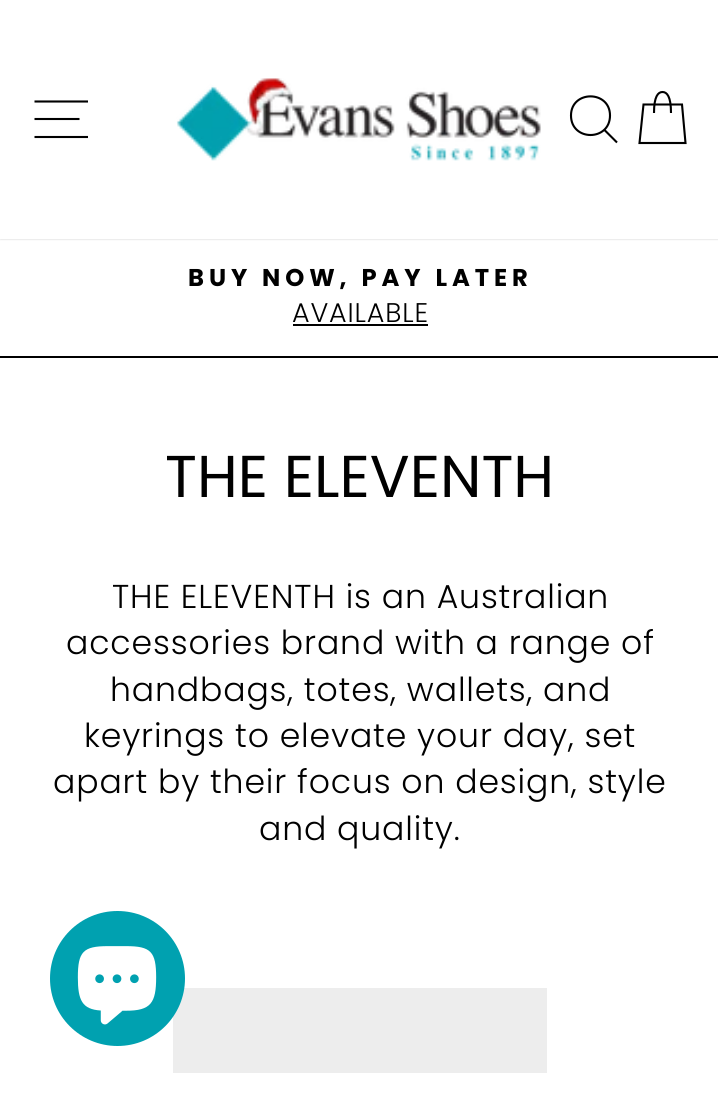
#include <cairo/cairo.h>
#include <math.h>
#include <stddef.h>

static cairo_t *cr;

static void use_color(int r, int g, int b) {
  cairo_set_source_rgb(cr, r / 255.0, g / 255.0, b / 255.0);
}

static void text(double x, double y, const char *s, const char *family, double size, int italic, int bold, int r, int g, int b) {
  cairo_select_font_face(cr, family, italic ? CAIRO_FONT_SLANT_ITALIC : CAIRO_FONT_SLANT_NORMAL,
    bold ? CAIRO_FONT_WEIGHT_BOLD : CAIRO_FONT_WEIGHT_NORMAL);
  cairo_set_font_size(cr, size);
  use_color(r, g, b);
  cairo_move_to(cr, x, y);
  cairo_show_text(cr, s);
}

static void spaced_text(double x, double y, const char *s, double letter, double word) {
  cairo_move_to(cr, x, y);
  while (*s) {
    char ch[5] = {0};
    int n = 0;
    do ch[n++] = *s++; while ((*s & 0xC0) == 0x80);
    cairo_show_text(cr, ch);
    cairo_rel_move_to(cr, letter + word * (*ch == ' '), 0);
  }
}

static void box(double x, double y, double w, double h, int r, int g, int b) {
  use_color(r, g, b);
  cairo_rectangle(cr, x, y, w, h);
  cairo_fill(cr);
}

static void round_rect(double x, double y, double w, double h, double r) {
  cairo_new_sub_path(cr);
  cairo_arc(cr, x + w - r, y + h - r, r, 0, M_PI / 2);
  cairo_arc(cr, x + r, y + h - r, r, M_PI / 2, M_PI);
  cairo_arc(cr, x + r, y + r, r, M_PI, 1.5 * M_PI);
  cairo_arc(cr, x + w - r, y + r, r, 1.5 * M_PI, 2 * M_PI);
  cairo_close_path(cr);
}

static void shadow(double x, double y, double w, double h, double r, double blur, double alpha) {
  cairo_push_group_with_content(cr, CAIRO_CONTENT_ALPHA);
  cairo_set_operator(cr, CAIRO_OPERATOR_SOURCE);
  for (int i = 15; i >= -15 && fmin(w, h) + blur * i / 3 > 0; i -= 2) {
    double e = blur * i / 6;
    cairo_set_source_rgba(cr, 0, 0, 0, alpha * erfc((i - 1) / 8.5) / 2);
    round_rect(x - e, y - e, w + 2 * e, h + 2 * e, fmax(0, fmin(r + e + blur * .6, fmin(w, h) / 2 + e)));
    cairo_fill(cr);
  }
  cairo_pattern_t *soft = cairo_pop_group(cr);
  cairo_mask(cr, soft);
  cairo_pattern_destroy(soft);
}

static void picture(const char *path, double x, double y, double w, double h) {
  cairo_surface_t *image = cairo_image_surface_create_from_png(path);
  cairo_save(cr);
  cairo_set_source_surface(cr, image, x, y);
  cairo_rectangle(cr, x, y, w, h);
  cairo_fill(cr);
  cairo_restore(cr);
  cairo_surface_destroy(image);
}

static void draw(void) {
  use_color(255, 255, 255);
  cairo_paint(cr);
  use_color(0, 0, 0);
  shadow(0, 0, 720, 239, 0, 1, 0.2);
  box(0, 0, 718, 239, 255, 255, 255);
  cairo_new_path(cr);
  cairo_move_to(cr, 34.5, 101.5);
  cairo_line_to(cr, 88, 101.5);
  cairo_move_to(cr, 34.5, 119);
  cairo_line_to(cr, 79.5, 119);
  cairo_move_to(cr, 34.5, 137);
  cairo_line_to(cr, 88, 137);
  use_color(0, 0, 0);
  cairo_set_line_width(cr, 2.1);
  cairo_stroke(cr);
  picture("img_01.png", 176, 78, 365, 83);
  cairo_new_path(cr);
  cairo_move_to(cr, 610, 115.5);
  cairo_curve_to(cr, 610, 141.5, 571, 141.5, 571, 115.5);
  cairo_curve_to(cr, 571, 90, 610, 90, 610, 115.5);
  cairo_close_path(cr);
  cairo_move_to(cr, 617, 142.5);
  cairo_line_to(cr, 604.5, 130);
  cairo_stroke(cr);
  cairo_new_path(cr);
  cairo_move_to(cr, 654, 113);
  cairo_curve_to(cr, 654, 96.5, 658, 92, 662.5, 92);
  cairo_curve_to(cr, 667, 92, 671, 96.5, 671, 113);
  cairo_move_to(cr, 643.5, 104.5);
  cairo_line_to(cr, 682, 104.5);
  cairo_line_to(cr, 685.5, 143);
  cairo_line_to(cr, 639.5, 143);
  cairo_close_path(cr);
  cairo_stroke(cr);
  box(0, 356, 718, 2, 0, 0, 0);
  box(293, 324, 135, 2, 0, 0, 0);
  box(173, 988, 374, 85, 237, 237, 237);
  use_color(0, 161, 176);
  cairo_arc(cr, 117.5, 978.5, 67.5, 0, 2 * M_PI);
  cairo_fill(cr);
  picture("img_02.png", 77, 946, 80, 79);
  cairo_select_font_face(cr, "Poppins", CAIRO_FONT_SLANT_NORMAL, CAIRO_FONT_WEIGHT_BOLD);
  cairo_set_font_size(cr, 24.25);
  use_color(0, 0, 0);
  spaced_text(188, 286, "BUY NOW, PAY LATER", 4.9, 0);
  cairo_select_font_face(cr, "Poppins Light", CAIRO_FONT_SLANT_NORMAL, CAIRO_FONT_WEIGHT_NORMAL);
  cairo_set_font_size(cr, 27);
  spaced_text(292, 322, "AVAILABLE", 0.85, 0);
  text(165, 497, "THE ELEVENTH", "Poppins", 59, 0, 0, 0, 0, 0);
  cairo_select_font_face(cr, "Poppins Light", CAIRO_FONT_SLANT_NORMAL, CAIRO_FONT_WEIGHT_NORMAL);
  cairo_set_font_size(cr, 33.1);
  spaced_text(112, 608, "THE ELEVENTH is an Australian", 0.85, 0);
  spaced_text(66, 654, "accessories brand with a range of", 0.85, 0);
  spaced_text(110, 701, "handbags, totes, wallets, and", 0.85, 0);
  spaced_text(84, 747, "keyrings to elevate your day, set", 0.85, 0);
  spaced_text(53, 793, "apart by their focus on design, style", 0.85, 0);
  spaced_text(259, 840, "and quality.", 0.85, 0);
}

int main(void) {
  cairo_surface_t *surface = cairo_image_surface_create(CAIRO_FORMAT_RGB24, 718, 1093);
  cr = cairo_create(surface);
  cairo_font_options_t *options = cairo_font_options_create();
  cairo_font_options_set_hint_metrics(options, CAIRO_HINT_METRICS_OFF);
  cairo_font_options_set_hint_style(options, CAIRO_HINT_STYLE_NONE);
  cairo_set_font_options(cr, options);
  cairo_set_miter_limit(cr, 4);
  draw();
  cairo_surface_write_to_png(surface, "out.png");
  cairo_font_options_destroy(options);
  cairo_destroy(cr);
  cairo_surface_destroy(surface);
  return 0;
}
